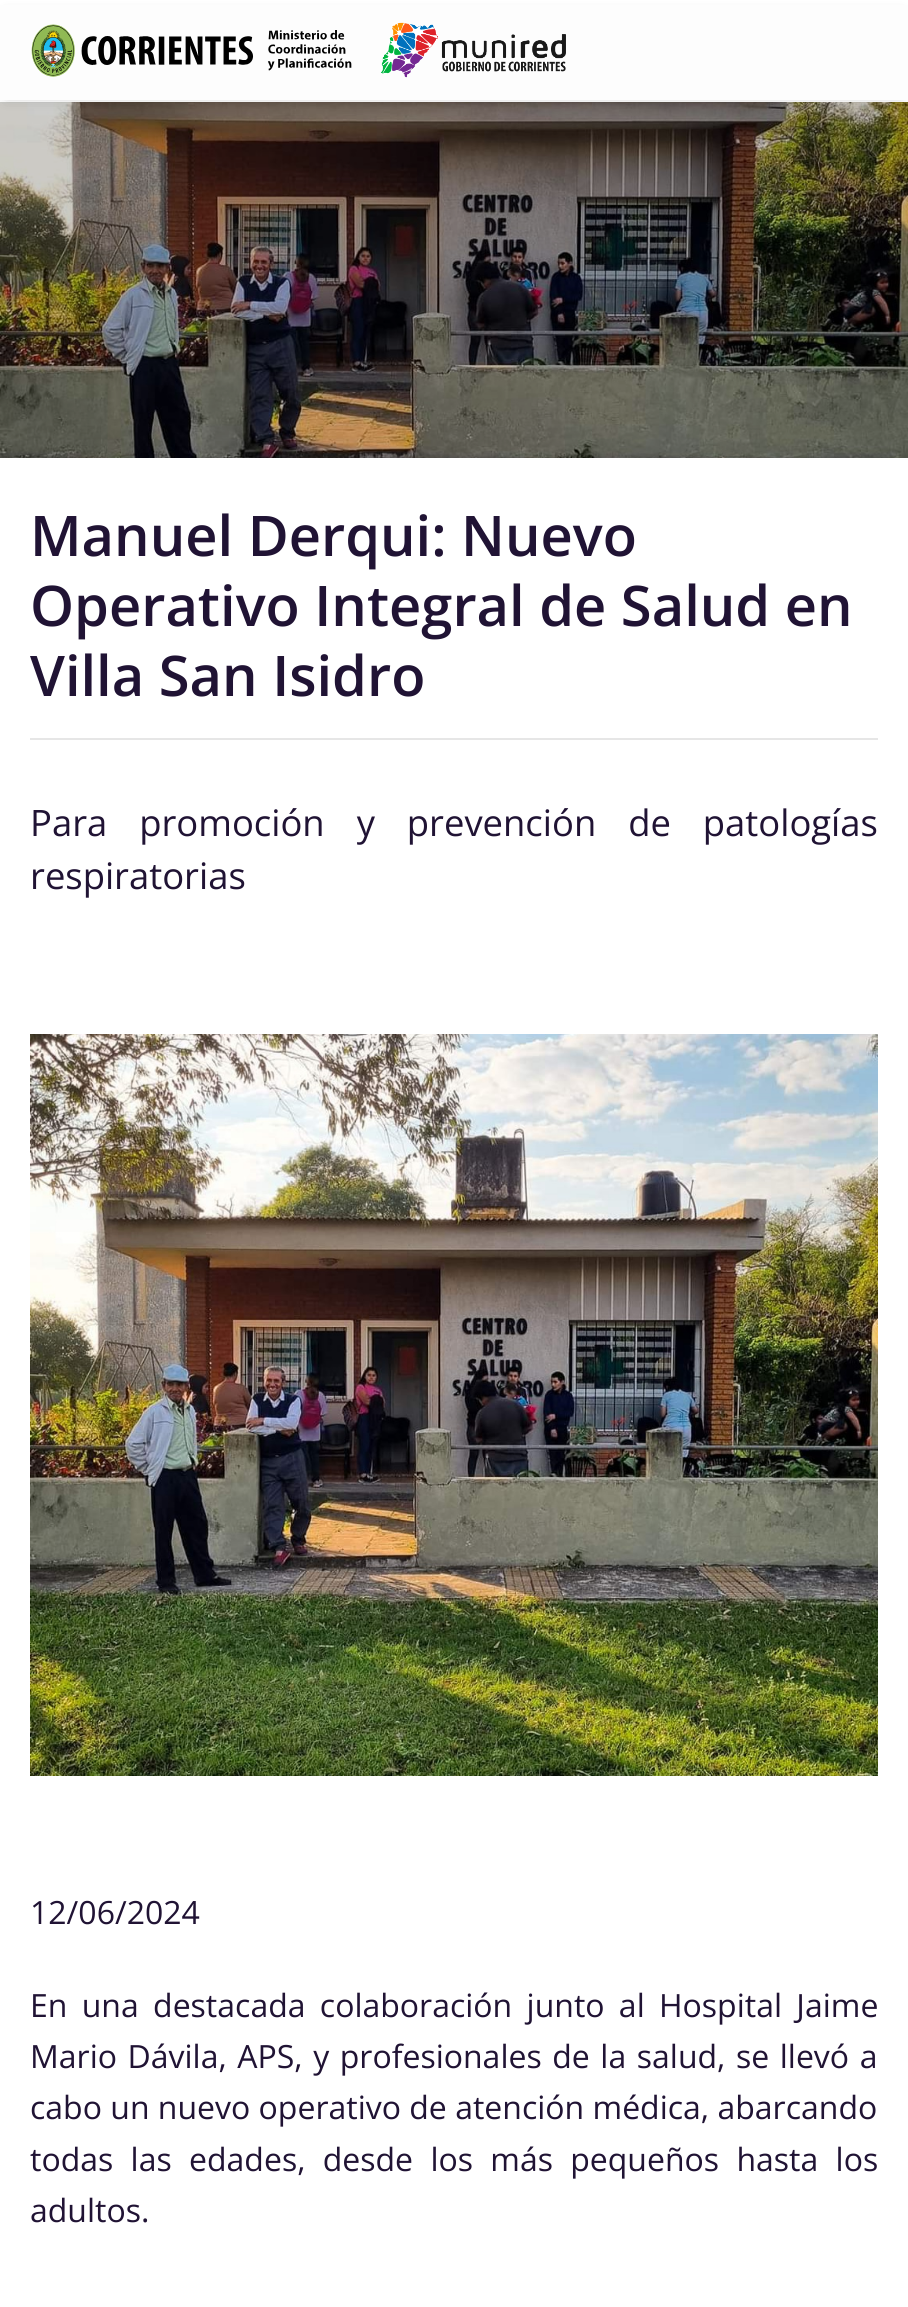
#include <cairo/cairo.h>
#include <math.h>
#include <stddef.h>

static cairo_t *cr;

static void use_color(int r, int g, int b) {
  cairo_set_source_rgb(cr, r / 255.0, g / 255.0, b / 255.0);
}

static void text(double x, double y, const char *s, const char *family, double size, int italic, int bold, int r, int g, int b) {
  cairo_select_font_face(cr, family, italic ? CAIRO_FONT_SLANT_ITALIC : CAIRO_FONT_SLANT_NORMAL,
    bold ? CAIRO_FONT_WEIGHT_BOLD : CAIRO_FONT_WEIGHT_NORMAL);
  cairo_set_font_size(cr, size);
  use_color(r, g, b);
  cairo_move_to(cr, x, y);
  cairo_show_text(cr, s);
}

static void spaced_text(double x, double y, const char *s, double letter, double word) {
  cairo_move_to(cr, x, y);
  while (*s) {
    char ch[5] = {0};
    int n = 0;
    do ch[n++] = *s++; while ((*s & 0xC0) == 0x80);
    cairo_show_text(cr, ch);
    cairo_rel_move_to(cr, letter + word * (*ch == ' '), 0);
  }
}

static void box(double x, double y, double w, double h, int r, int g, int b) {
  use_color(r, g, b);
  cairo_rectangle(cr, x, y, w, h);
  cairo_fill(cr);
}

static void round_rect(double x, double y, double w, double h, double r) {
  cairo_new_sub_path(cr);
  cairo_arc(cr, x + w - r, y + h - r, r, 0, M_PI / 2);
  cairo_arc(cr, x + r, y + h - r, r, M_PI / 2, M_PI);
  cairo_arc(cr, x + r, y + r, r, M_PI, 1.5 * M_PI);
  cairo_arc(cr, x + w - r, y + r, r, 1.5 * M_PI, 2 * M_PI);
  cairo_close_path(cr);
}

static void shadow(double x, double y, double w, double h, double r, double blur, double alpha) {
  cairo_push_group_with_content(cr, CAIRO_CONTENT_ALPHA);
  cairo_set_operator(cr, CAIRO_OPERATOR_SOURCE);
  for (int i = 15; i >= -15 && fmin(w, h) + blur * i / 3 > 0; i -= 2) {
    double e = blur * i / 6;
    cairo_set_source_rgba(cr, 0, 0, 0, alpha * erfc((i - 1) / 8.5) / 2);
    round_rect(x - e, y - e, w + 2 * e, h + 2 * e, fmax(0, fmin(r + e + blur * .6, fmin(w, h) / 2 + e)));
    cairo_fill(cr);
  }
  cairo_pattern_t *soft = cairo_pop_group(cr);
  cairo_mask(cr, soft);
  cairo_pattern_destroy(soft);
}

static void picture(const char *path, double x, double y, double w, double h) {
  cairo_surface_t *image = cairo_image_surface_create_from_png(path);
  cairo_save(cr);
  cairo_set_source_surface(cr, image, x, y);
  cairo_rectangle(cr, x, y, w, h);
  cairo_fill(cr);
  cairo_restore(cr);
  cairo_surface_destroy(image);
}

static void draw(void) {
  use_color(255, 255, 255);
  cairo_paint(cr);
  picture("img_03.png", 0, 102, 908, 356);
  cairo_set_source_rgba(cr, 0, 0, 0, 0.2);
  cairo_rectangle(cr, 0, 102, 908, 356);
  cairo_fill(cr);
  use_color(17, 17, 17);
  shadow(6, 12, 896, 88, 0, 6, 0.15);
  box(0, 5, 908, 95, 253, 253, 253);
  picture("img_01.png", 31, 24, 321, 53);
  picture("img_02.png", 380, 22, 186, 56);
  box(30, 738, 848, 2, 230, 230, 230);
  picture("img_04.png", 30, 1034, 848, 742);
  text(30, 556, "Manuel Derqui: Nuevo", "Open Sans SemiBold", 56, 0, 0, 32, 19, 52);
  text(30, 626, "Operativo Integral de Salud en", "Open Sans SemiBold", 56, 0, 0, 32, 19, 52);
  text(30, 696, "Villa San Isidro", "Open Sans SemiBold", 56, 0, 0, 32, 19, 52);
  cairo_select_font_face(cr, "Open Sans", CAIRO_FONT_SLANT_NORMAL, CAIRO_FONT_WEIGHT_NORMAL);
  cairo_set_font_size(cr, 36.4);
  spaced_text(30, 836, "Para promoción y prevención de patologías", 0, 22.5);
  text(30, 889, "respiratorias", "Open Sans", 36.4, 0, 0, 32, 19, 52);
  text(30, 1924, "12/06/2024", "Open Sans", 32, 0, 0, 32, 19, 52);
  spaced_text(30, 2017, "En una destacada colaboración junto al Hospital Jaime", 0, 6);
  spaced_text(30, 2068, "Mario Dávila, APS, y profesionales de la salud, se llevó a", 0, 2.25);
  text(30, 2119, "cabo un nuevo operativo de atención médica, abarcando", "Open Sans", 32, 0, 0, 32, 19, 52);
  spaced_text(30, 2171, "todas las edades, desde los más pequeños hasta los", 0, 9);
  text(30, 2222, "adultos.", "Open Sans", 32, 0, 0, 32, 19, 52);
}

int main(void) {
  cairo_surface_t *surface = cairo_image_surface_create(CAIRO_FORMAT_RGB24, 908, 2307);
  cr = cairo_create(surface);
  cairo_font_options_t *options = cairo_font_options_create();
  cairo_font_options_set_hint_metrics(options, CAIRO_HINT_METRICS_OFF);
  cairo_font_options_set_hint_style(options, CAIRO_HINT_STYLE_NONE);
  cairo_set_font_options(cr, options);
  cairo_set_miter_limit(cr, 4);
  draw();
  cairo_surface_write_to_png(surface, "out.png");
  cairo_font_options_destroy(options);
  cairo_destroy(cr);
  cairo_surface_destroy(surface);
  return 0;
}
